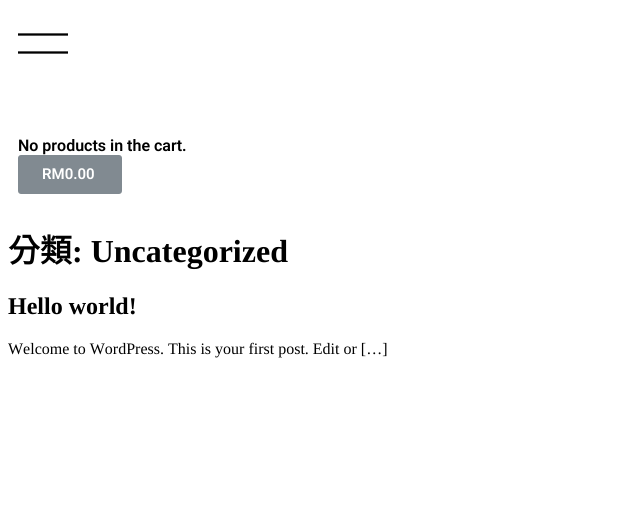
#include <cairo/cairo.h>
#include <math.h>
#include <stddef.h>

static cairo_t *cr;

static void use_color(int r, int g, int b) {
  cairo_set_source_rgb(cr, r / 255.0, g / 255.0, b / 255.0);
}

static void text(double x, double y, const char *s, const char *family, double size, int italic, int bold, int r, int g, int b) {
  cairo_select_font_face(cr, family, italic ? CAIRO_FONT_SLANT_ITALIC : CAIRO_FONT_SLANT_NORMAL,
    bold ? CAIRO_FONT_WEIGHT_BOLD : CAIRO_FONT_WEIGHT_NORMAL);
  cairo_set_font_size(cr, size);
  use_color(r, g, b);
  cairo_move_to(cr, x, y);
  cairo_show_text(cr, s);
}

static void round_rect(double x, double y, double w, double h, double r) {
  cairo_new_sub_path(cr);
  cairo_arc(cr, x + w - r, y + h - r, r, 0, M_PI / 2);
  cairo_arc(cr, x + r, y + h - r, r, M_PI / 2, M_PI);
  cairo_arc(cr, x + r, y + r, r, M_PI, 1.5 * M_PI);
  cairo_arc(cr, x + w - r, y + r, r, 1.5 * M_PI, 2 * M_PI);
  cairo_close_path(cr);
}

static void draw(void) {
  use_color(255, 255, 255);
  cairo_paint(cr);
  cairo_new_path(cr);
  cairo_move_to(cr, 18, 34.5);
  cairo_line_to(cr, 68, 34.5);
  cairo_move_to(cr, 18, 52.5);
  cairo_line_to(cr, 68, 52.5);
  use_color(0, 0, 0);
  cairo_set_line_width(cr, 2.3);
  cairo_stroke(cr);
  use_color(129, 138, 145);
  round_rect(18, 155, 104, 39, 3);
  cairo_fill(cr);
  text(18, 151, "No products in the cart.", "Roboto SemiBold", 16, 0, 0, 0, 0, 0);
  text(42, 179, "RM0.00", "Roboto SemiBold", 15, 0, 0, 255, 255, 255);
  text(8, 262, "分類", "Noto Sans CJK TC", 32, 0, 1, 0, 0, 0);
  text(72, 262, ": Uncategorized", "Liberation Serif", 32, 0, 1, 0, 0, 0);
  text(8, 314, "Hello world!", "Liberation Serif", 24, 0, 1, 0, 0, 0);
  text(8, 354, "Welcome to WordPress. This is your first post. Edit or […]", "Liberation Serif", 16, 0, 0, 0, 0, 0);
}

int main(void) {
  cairo_surface_t *surface = cairo_image_surface_create(CAIRO_FORMAT_RGB24, 644, 506);
  cr = cairo_create(surface);
  cairo_font_options_t *options = cairo_font_options_create();
  cairo_font_options_set_hint_metrics(options, CAIRO_HINT_METRICS_OFF);
  cairo_font_options_set_hint_style(options, CAIRO_HINT_STYLE_NONE);
  cairo_set_font_options(cr, options);
  cairo_set_miter_limit(cr, 4);
  draw();
  cairo_surface_write_to_png(surface, "out.png");
  cairo_font_options_destroy(options);
  cairo_destroy(cr);
  cairo_surface_destroy(surface);
  return 0;
}
